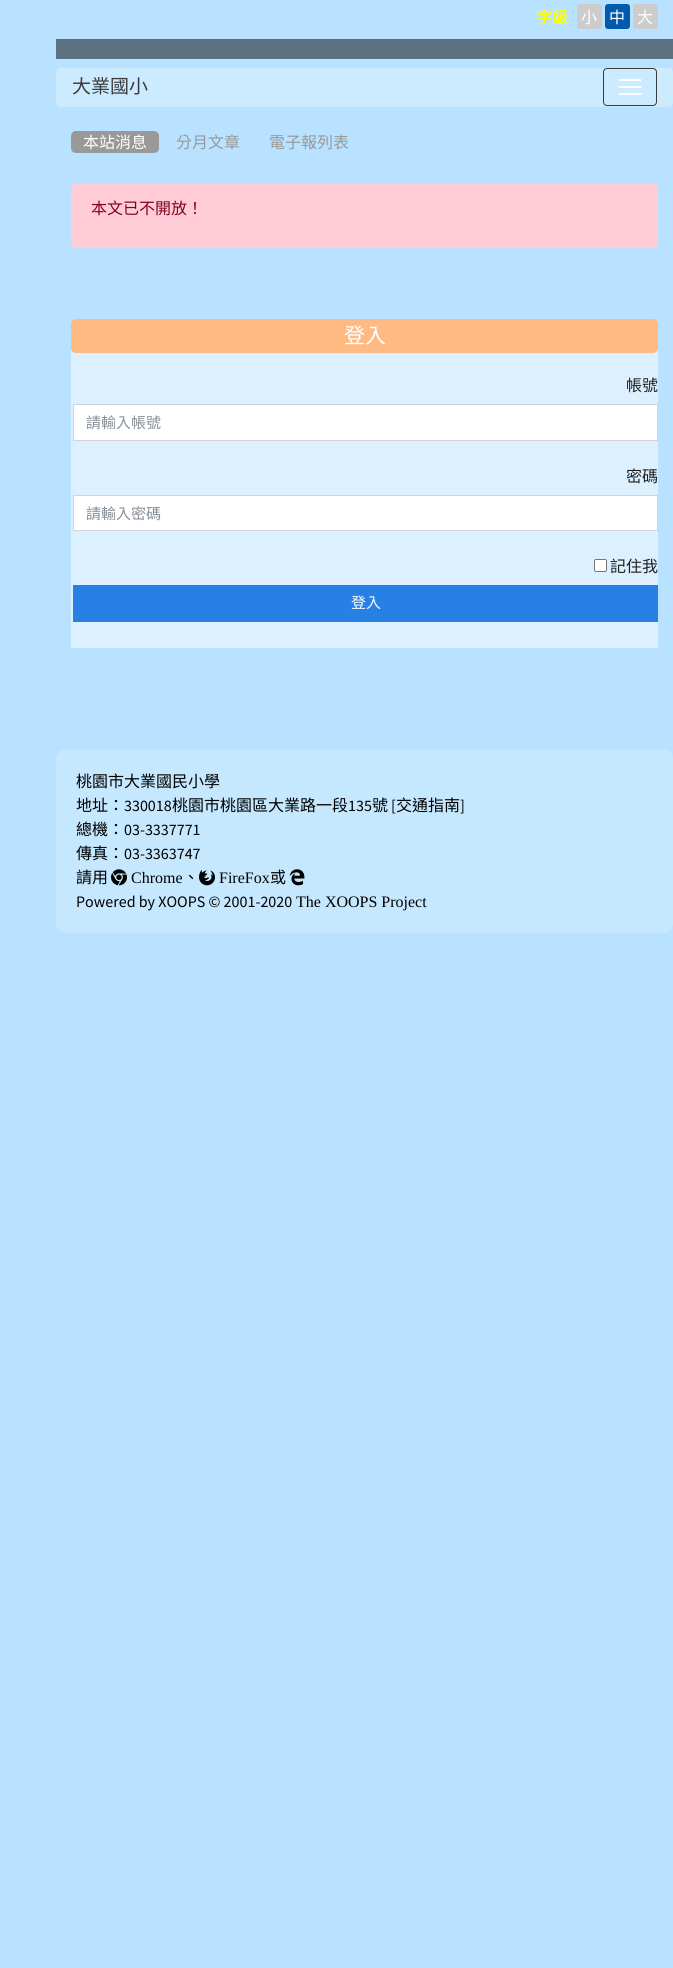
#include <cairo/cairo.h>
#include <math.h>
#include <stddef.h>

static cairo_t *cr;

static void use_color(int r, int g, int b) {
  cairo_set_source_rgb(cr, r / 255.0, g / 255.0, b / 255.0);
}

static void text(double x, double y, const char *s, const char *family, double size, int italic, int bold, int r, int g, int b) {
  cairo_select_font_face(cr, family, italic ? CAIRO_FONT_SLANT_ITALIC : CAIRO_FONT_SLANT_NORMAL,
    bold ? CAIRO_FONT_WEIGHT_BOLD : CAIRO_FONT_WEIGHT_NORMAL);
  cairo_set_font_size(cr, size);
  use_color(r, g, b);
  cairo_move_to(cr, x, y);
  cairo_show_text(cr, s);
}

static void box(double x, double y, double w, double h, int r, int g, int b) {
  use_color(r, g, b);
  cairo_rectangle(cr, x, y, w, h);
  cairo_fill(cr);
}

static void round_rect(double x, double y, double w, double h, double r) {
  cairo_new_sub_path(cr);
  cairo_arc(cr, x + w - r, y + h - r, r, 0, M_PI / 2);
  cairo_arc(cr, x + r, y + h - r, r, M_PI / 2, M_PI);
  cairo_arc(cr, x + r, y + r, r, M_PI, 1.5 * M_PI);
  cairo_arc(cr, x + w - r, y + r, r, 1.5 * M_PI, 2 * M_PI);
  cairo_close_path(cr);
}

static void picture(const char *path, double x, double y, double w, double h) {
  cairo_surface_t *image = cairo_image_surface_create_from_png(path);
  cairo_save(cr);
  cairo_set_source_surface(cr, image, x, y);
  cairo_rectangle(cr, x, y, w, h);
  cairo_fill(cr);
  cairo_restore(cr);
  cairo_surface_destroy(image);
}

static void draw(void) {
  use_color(184, 226, 255);
  cairo_paint(cr);
  use_color(204, 204, 204);
  round_rect(577, 4, 25, 25, 3);
  cairo_fill(cr);
  use_color(0, 91, 172);
  round_rect(605, 4, 25, 25, 3);
  cairo_fill(cr);
  use_color(204, 204, 204);
  round_rect(633, 4, 25, 25, 3);
  cairo_fill(cr);
  box(56, 39, 617, 20, 92, 113, 128);
  use_color(205, 235, 255);
  round_rect(56, 68, 617, 39, 5);
  cairo_fill(cr);
  round_rect(603.5, 68.5, 53, 37, 3.5);
  use_color(59, 59, 59);
  cairo_set_line_width(cr, 1);
  cairo_stroke(cr);
  picture("img_01.png", 618, 79, 24, 16);
  use_color(153, 153, 153);
  round_rect(71, 131, 88, 22, 5);
  cairo_fill(cr);
  use_color(255, 204, 215);
  round_rect(71, 184, 587, 64, 4);
  cairo_fill(cr);
  use_color(220, 240, 255);
  cairo_new_path(cr);
  cairo_move_to(cr, 77, 319);
  cairo_line_to(cr, 652, 319);
  cairo_curve_to(cr, 655.5, 319, 658, 321.5, 658, 325);
  cairo_line_to(cr, 658, 648);
  cairo_line_to(cr, 71, 648);
  cairo_line_to(cr, 71, 325);
  cairo_curve_to(cr, 71, 321.5, 73.5, 319, 77, 319);
  cairo_close_path(cr);
  cairo_fill(cr);
  use_color(255, 186, 131);
  round_rect(71, 319, 587, 34, 5);
  cairo_fill(cr);
  use_color(255, 255, 255);
  cairo_rectangle(cr, 73.5, 404.5, 584, 36);
  cairo_fill_preserve(cr);
  use_color(206, 212, 218);
  cairo_stroke(cr);
  use_color(255, 255, 255);
  cairo_rectangle(cr, 73.5, 495.5, 584, 35);
  cairo_fill_preserve(cr);
  use_color(206, 212, 218);
  cairo_stroke(cr);
  use_color(255, 255, 255);
  round_rect(594.5, 559.5, 12, 12, 1.5);
  cairo_fill_preserve(cr);
  use_color(118, 118, 118);
  cairo_stroke(cr);
  box(73, 585, 585, 37, 39, 128, 227);
  use_color(198, 232, 255);
  round_rect(56, 749, 617, 184, 10);
  cairo_fill(cr);
  picture("img_02.png", 111, 869, 16, 17);
  picture("img_03.png", 199, 870, 16, 16);
  picture("img_04.png", 289, 869, 16, 17);
  text(536, 23, "字級", "Noto Sans CJK TC", 16, 0, 1, 255, 255, 0);
  text(581, 23, "小", "Noto Sans CJK TC", 16, 0, 0, 255, 255, 255);
  text(609, 23, "中", "Noto Sans CJK TC", 16, 0, 0, 255, 255, 255);
  text(637, 23, "大", "Noto Sans CJK TC", 16, 0, 0, 255, 255, 255);
  text(72, 93, "大業國小", "Noto Sans CJK TC", 19, 0, 0, 59, 59, 59);
  text(83, 148, "本站消息", "Noto Sans CJK TC", 16, 0, 0, 255, 255, 255);
  text(176, 148, "分月文章", "Noto Sans CJK TC", 16, 0, 0, 153, 153, 153);
  text(269, 148, "電子報列表", "Noto Sans CJK TC", 16, 0, 0, 153, 153, 153);
  text(91, 214, "本文已不開放！", "Noto Sans CJK TC", 16, 0, 0, 133, 0, 30);
  text(344, 343, "登入", "Noto Sans CJK TC", 21, 0, 0, 255, 255, 255);
  text(626, 391, "帳號", "Noto Sans CJK TC", 16, 0, 0, 32, 32, 32);
  text(86, 428, "請輸入帳號", "Noto Sans CJK TC", 15, 0, 0, 134, 142, 150);
  text(626, 482, "密碼", "Noto Sans CJK TC", 16, 0, 0, 32, 32, 32);
  text(86, 519, "請輸入密碼", "Noto Sans CJK TC", 15, 0, 0, 134, 142, 150);
  text(610, 572, "記住我", "Noto Sans CJK TC", 16, 0, 0, 32, 32, 32);
  text(351, 608, "登入", "Noto Sans CJK TC", 15, 0, 0, 255, 255, 255);
  text(76, 787, "桃園市大業國民小學", "Noto Sans CJK TC", 16, 0, 0, 0, 0, 0);
  text(76, 811, "地址：", "Noto Sans CJK TC", 16, 0, 0, 0, 0, 0);
  text(124, 811, "330018", "Source Sans Pro", 16, 0, 0, 0, 0, 0);
  text(172, 811, "桃園市桃園區大業路一段", "Noto Sans CJK TC", 16, 0, 0, 0, 0, 0);
  text(348, 811, "135", "Source Sans Pro", 16, 0, 0, 0, 0, 0);
  text(372, 811, "號", "Noto Sans CJK TC", 16, 0, 0, 0, 0, 0);
  text(391, 811, "[", "Source Sans Pro", 16, 0, 0, 0, 0, 0);
  text(396, 811, "交通指南", "Noto Sans CJK TC", 16, 0, 0, 0, 0, 0);
  text(460, 811, "]", "Source Sans Pro", 16, 0, 0, 0, 0, 0);
  text(76, 835, "總機：", "Noto Sans CJK TC", 16, 0, 0, 0, 0, 0);
  text(124, 835, "03-3337771", "Source Sans Pro", 16, 0, 0, 0, 0, 0);
  text(76, 859, "傳真：", "Noto Sans CJK TC", 16, 0, 0, 0, 0, 0);
  text(124, 859, "03-3363747", "Source Sans Pro", 16, 0, 0, 0, 0, 0);
  text(76, 883, "請用", "Noto Sans CJK TC", 16, 0, 0, 0, 0, 0);
  text(131, 883, "Chrome", "Liberation Serif", 16, 0, 0, 0, 0, 0);
  text(183, 883, "、", "Noto Sans CJK TC", 16, 0, 0, 0, 0, 0);
  text(219, 883, "FireFox", "Liberation Serif", 16, 0, 0, 0, 0, 0);
  text(270, 883, "或", "Noto Sans CJK TC", 16, 0, 0, 0, 0, 0);
  text(76, 907, "Powered by XOOPS © 2001-2020", "Source Sans Pro", 16, 0, 0, 0, 0, 0);
  text(296, 907, "The XOOPS Project", "Liberation Serif", 16, 0, 0, 0, 0, 0);
}

int main(void) {
  cairo_surface_t *surface = cairo_image_surface_create(CAIRO_FORMAT_RGB24, 673, 1968);
  cr = cairo_create(surface);
  cairo_font_options_t *options = cairo_font_options_create();
  cairo_font_options_set_hint_metrics(options, CAIRO_HINT_METRICS_OFF);
  cairo_font_options_set_hint_style(options, CAIRO_HINT_STYLE_NONE);
  cairo_set_font_options(cr, options);
  cairo_set_miter_limit(cr, 4);
  draw();
  cairo_surface_write_to_png(surface, "out.png");
  cairo_font_options_destroy(options);
  cairo_destroy(cr);
  cairo_surface_destroy(surface);
  return 0;
}
